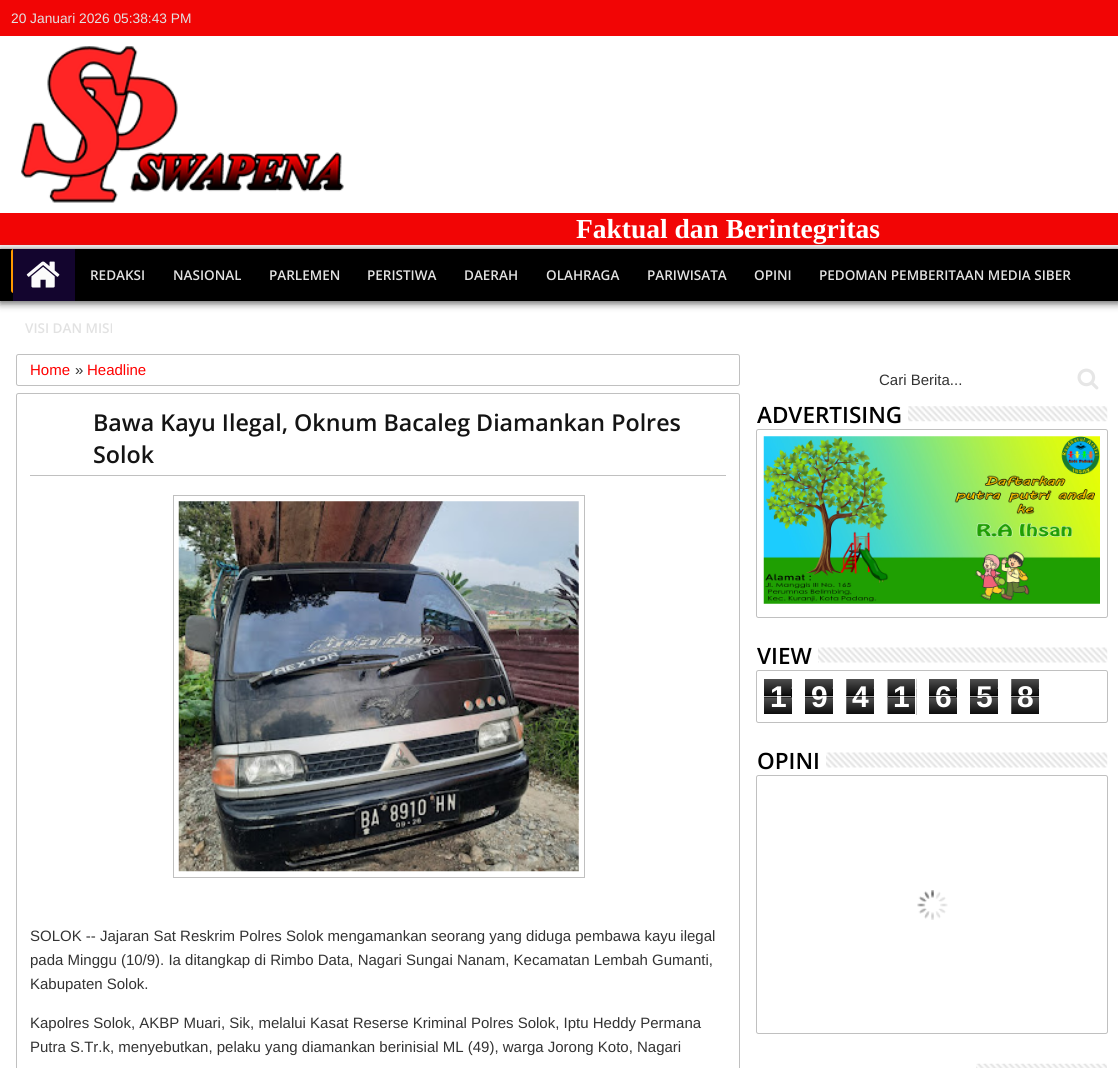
#include <cairo/cairo.h>
#include <math.h>
#include <stddef.h>

static cairo_t *cr;

static void use_color(int r, int g, int b) {
  cairo_set_source_rgb(cr, r / 255.0, g / 255.0, b / 255.0);
}

static void text(double x, double y, const char *s, const char *family, double size, int italic, int bold, int r, int g, int b) {
  cairo_select_font_face(cr, family, italic ? CAIRO_FONT_SLANT_ITALIC : CAIRO_FONT_SLANT_NORMAL,
    bold ? CAIRO_FONT_WEIGHT_BOLD : CAIRO_FONT_WEIGHT_NORMAL);
  cairo_set_font_size(cr, size);
  use_color(r, g, b);
  cairo_move_to(cr, x, y);
  cairo_show_text(cr, s);
}

static void box(double x, double y, double w, double h, int r, int g, int b) {
  use_color(r, g, b);
  cairo_rectangle(cr, x, y, w, h);
  cairo_fill(cr);
}

static void round_rect(double x, double y, double w, double h, double r) {
  cairo_new_sub_path(cr);
  cairo_arc(cr, x + w - r, y + h - r, r, 0, M_PI / 2);
  cairo_arc(cr, x + r, y + h - r, r, M_PI / 2, M_PI);
  cairo_arc(cr, x + r, y + r, r, M_PI, 1.5 * M_PI);
  cairo_arc(cr, x + w - r, y + r, r, 1.5 * M_PI, 2 * M_PI);
  cairo_close_path(cr);
}

static void shadow(double x, double y, double w, double h, double r, double blur, double alpha) {
  cairo_push_group_with_content(cr, CAIRO_CONTENT_ALPHA);
  cairo_set_operator(cr, CAIRO_OPERATOR_SOURCE);
  for (int i = 15; i >= -15 && fmin(w, h) + blur * i / 3 > 0; i -= 2) {
    double e = blur * i / 6;
    cairo_set_source_rgba(cr, 0, 0, 0, alpha * erfc((i - 1) / 8.5) / 2);
    round_rect(x - e, y - e, w + 2 * e, h + 2 * e, fmax(0, fmin(r + e + blur * .6, fmin(w, h) / 2 + e)));
    cairo_fill(cr);
  }
  cairo_pattern_t *soft = cairo_pop_group(cr);
  cairo_mask(cr, soft);
  cairo_pattern_destroy(soft);
}

static void picture(const char *path, double x, double y, double w, double h) {
  cairo_surface_t *image = cairo_image_surface_create_from_png(path);
  cairo_save(cr);
  cairo_set_source_surface(cr, image, x, y);
  cairo_rectangle(cr, x, y, w, h);
  cairo_fill(cr);
  cairo_restore(cr);
  cairo_surface_destroy(image);
}

static void draw(void) {
  use_color(255, 255, 255);
  cairo_paint(cr);
  box(0, 0, 1118, 36, 242, 5, 5);
  picture("img_01.png", 21, 46, 323, 157);
  box(0, 213, 1118, 32, 242, 5, 5);
  use_color(88, 88, 88);
  shadow(0, 250, 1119, 53, 0, 4, 1);
  box(0, 249, 1118, 52, 0, 0, 0);
  use_color(255, 153, 0);
  round_rect(11, 249, 44, 44, 2.5);
  cairo_fill(cr);
  box(13, 249, 62, 52, 19, 5, 46);
  picture("img_02.png", 26, 261, 34, 27);
  picture("img_03.png", 1077, 368, 22, 22);
  round_rect(16.5, 354.5, 723, 31, 2);
  use_color(192, 192, 192);
  cairo_set_line_width(cr, 1);
  cairo_stroke(cr);
  round_rect(16.5, 393.5, 723, 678, 2);
  cairo_stroke(cr);
  box(30, 475, 696, 1, 192, 192, 192);
  cairo_rectangle(cr, 173.5, 495.5, 411, 382);
  cairo_stroke(cr);
  picture("img_04.png", 178, 501, 401, 371);
  picture("img_05.png", 908, 406, 200, 16);
  round_rect(756.5, 429.5, 351, 188, 2);
  cairo_stroke(cr);
  picture("img_06.png", 763, 436, 337, 168);
  picture("img_07.png", 818, 647, 290, 16);
  round_rect(756.5, 670.5, 351, 52, 2);
  cairo_stroke(cr);
  picture("img_08.png", 764, 679, 28, 35);
  picture("img_09.png", 805, 679, 28, 35);
  picture("img_10.png", 846, 679, 28, 35);
  picture("img_11.png", 887, 678, 30, 37);
  cairo_rectangle(cr, 886.5, 678.5, 29, 36);
  use_color(255, 255, 255);
  cairo_stroke(cr);
  picture("img_08.png", 929, 679, 28, 35);
  picture("img_09.png", 970, 679, 28, 35);
  picture("img_10.png", 1011, 679, 28, 35);
  picture("img_12.png", 826, 752, 282, 16);
  round_rect(756.5, 775.5, 351, 258, 2);
  use_color(192, 192, 192);
  cairo_stroke(cr);
  picture("img_13.png", 917, 890, 31, 30);
  picture("img_14.png", 976, 1063, 131, 5);
  text(11, 23, "20 Januari 2026 05:38:43 PM", "Liberation Sans", 13.75, 0, 0, 226, 226, 226);
  text(576, 238, "Faktual dan Berintegritas", "Liberation Serif", 27.5, 0, 1, 255, 255, 255);
  text(90, 280, "REDAKSI", "Open Sans SemiBold", 13.5, 0, 0, 226, 226, 226);
  text(173, 280, "NASIONAL", "Open Sans SemiBold", 13.5, 0, 0, 226, 226, 226);
  text(269, 280, "PARLEMEN", "Open Sans SemiBold", 13.5, 0, 0, 226, 226, 226);
  text(367, 280, "PERISTIWA", "Open Sans SemiBold", 13.5, 0, 0, 226, 226, 226);
  text(464, 280, "DAERAH", "Open Sans SemiBold", 13.5, 0, 0, 226, 226, 226);
  text(546, 280, "OLAHRAGA", "Open Sans SemiBold", 13.5, 0, 0, 226, 226, 226);
  text(647, 280, "PARIWISATA", "Open Sans SemiBold", 13.5, 0, 0, 226, 226, 226);
  text(754, 280, "OPINI", "Open Sans SemiBold", 13.5, 0, 0, 226, 226, 226);
  text(819, 280, "PEDOMAN PEMBERITAAN MEDIA SIBER", "Open Sans SemiBold", 13.5, 0, 0, 226, 226, 226);
  text(25, 333, "VISI DAN MISI", "Open Sans SemiBold", 13.5, 0, 0, 226, 226, 226);
  text(879, 385, "Cari Berita...", "Liberation Sans", 15, 0, 0, 51, 51, 51);
  text(30, 375, "Home", "Liberation Sans", 15, 0, 0, 255, 0, 0);
  text(75, 375, "»", "Liberation Sans", 15, 0, 0, 51, 51, 51);
  text(87, 375, "Headline", "Liberation Sans", 15, 0, 0, 255, 0, 0);
  text(93, 431, "Bawa Kayu Ilegal, Oknum Bacaleg Diamankan Polres", "Open Sans SemiBold", 23.25, 0, 0, 20, 20, 20);
  text(93, 463, "Solok", "Open Sans SemiBold", 23.25, 0, 0, 20, 20, 20);
  text(30, 941, "SOLOK -- Jajaran Sat Reskrim Polres Solok mengamankan seorang yang diduga pembawa kayu ilegal", "Liberation Sans", 15, 0, 0, 51, 51, 51);
  text(30, 965, "pada Minggu (10/9). Ia ditangkap di Rimbo Data, Nagari Sungai Nanam, Kecamatan Lembah Gumanti,", "Liberation Sans", 15, 0, 0, 51, 51, 51);
  text(30, 989, "Kabupaten Solok.", "Liberation Sans", 15, 0, 0, 51, 51, 51);
  text(30, 1028, "Kapolres Solok, AKBP Muari, Sik, melalui Kasat Reserse Kriminal Polres Solok, Iptu Heddy Permana", "Liberation Sans", 15, 0, 0, 51, 51, 51);
  text(30, 1052, "Putra S.Tr.k, menyebutkan, pelaku yang diamankan berinisial ML (49), warga Jorong Koto, Nagari", "Liberation Sans", 15, 0, 0, 51, 51, 51);
  text(757, 423, "ADVERTISING", "Open Sans SemiBold", 22.5, 0, 0, 0, 0, 0);
  text(757, 664, "VIEW", "Open Sans SemiBold", 22.5, 0, 0, 0, 0, 0);
  text(770, 707, "1", "Liberation Sans", 30, 0, 1, 255, 255, 255);
  cairo_set_source_rgba(cr, 0, 0, 0, 0.65);
  cairo_rectangle(cr, 764, 695, 27, 1);
  cairo_fill(cr);
  cairo_set_source_rgba(cr, 1, 1, 1, 0.65);
  cairo_rectangle(cr, 764, 696, 27, 1);
  cairo_fill(cr);
  text(811, 707, "9", "Liberation Sans", 30, 0, 1, 255, 255, 255);
  cairo_set_source_rgba(cr, 0, 0, 0, 0.65);
  cairo_rectangle(cr, 805, 695, 28, 1);
  cairo_fill(cr);
  cairo_set_source_rgba(cr, 1, 1, 1, 0.65);
  cairo_rectangle(cr, 805, 696, 28, 1);
  cairo_fill(cr);
  text(852, 707, "4", "Liberation Sans", 30, 0, 1, 255, 255, 255);
  cairo_set_source_rgba(cr, 0, 0, 0, 0.65);
  cairo_rectangle(cr, 846, 695, 28, 1);
  cairo_fill(cr);
  cairo_set_source_rgba(cr, 1, 1, 1, 0.65);
  cairo_rectangle(cr, 846, 696, 28, 1);
  cairo_fill(cr);
  text(893, 707, "1", "Liberation Sans", 30, 0, 1, 255, 255, 255);
  cairo_set_source_rgba(cr, 0, 0, 0, 0.65);
  cairo_rectangle(cr, 888, 695, 27, 1);
  cairo_fill(cr);
  cairo_set_source_rgba(cr, 1, 1, 1, 0.65);
  cairo_rectangle(cr, 888, 696, 27, 1);
  cairo_fill(cr);
  text(935, 707, "6", "Liberation Sans", 30, 0, 1, 255, 255, 255);
  cairo_set_source_rgba(cr, 0, 0, 0, 0.65);
  cairo_rectangle(cr, 929, 695, 27, 1);
  cairo_fill(cr);
  cairo_set_source_rgba(cr, 1, 1, 1, 0.65);
  cairo_rectangle(cr, 929, 696, 27, 1);
  cairo_fill(cr);
  text(976, 707, "5", "Liberation Sans", 30, 0, 1, 255, 255, 255);
  cairo_set_source_rgba(cr, 0, 0, 0, 0.65);
  cairo_rectangle(cr, 970, 695, 28, 1);
  cairo_fill(cr);
  cairo_set_source_rgba(cr, 1, 1, 1, 0.65);
  cairo_rectangle(cr, 970, 696, 28, 1);
  cairo_fill(cr);
  text(1017, 707, "8", "Liberation Sans", 30, 0, 1, 255, 255, 255);
  cairo_set_source_rgba(cr, 0, 0, 0, 0.65);
  cairo_rectangle(cr, 1011, 695, 28, 1);
  cairo_fill(cr);
  cairo_set_source_rgba(cr, 1, 1, 1, 0.65);
  cairo_rectangle(cr, 1011, 696, 28, 1);
  cairo_fill(cr);
  text(757, 769, "OPINI", "Open Sans SemiBold", 22.5, 0, 0, 0, 0, 0);
}

int main(void) {
  cairo_surface_t *surface = cairo_image_surface_create(CAIRO_FORMAT_RGB24, 1118, 1068);
  cr = cairo_create(surface);
  cairo_font_options_t *options = cairo_font_options_create();
  cairo_font_options_set_hint_metrics(options, CAIRO_HINT_METRICS_OFF);
  cairo_font_options_set_hint_style(options, CAIRO_HINT_STYLE_NONE);
  cairo_set_font_options(cr, options);
  cairo_set_miter_limit(cr, 4);
  draw();
  cairo_surface_write_to_png(surface, "out.png");
  cairo_font_options_destroy(options);
  cairo_destroy(cr);
  cairo_surface_destroy(surface);
  return 0;
}
